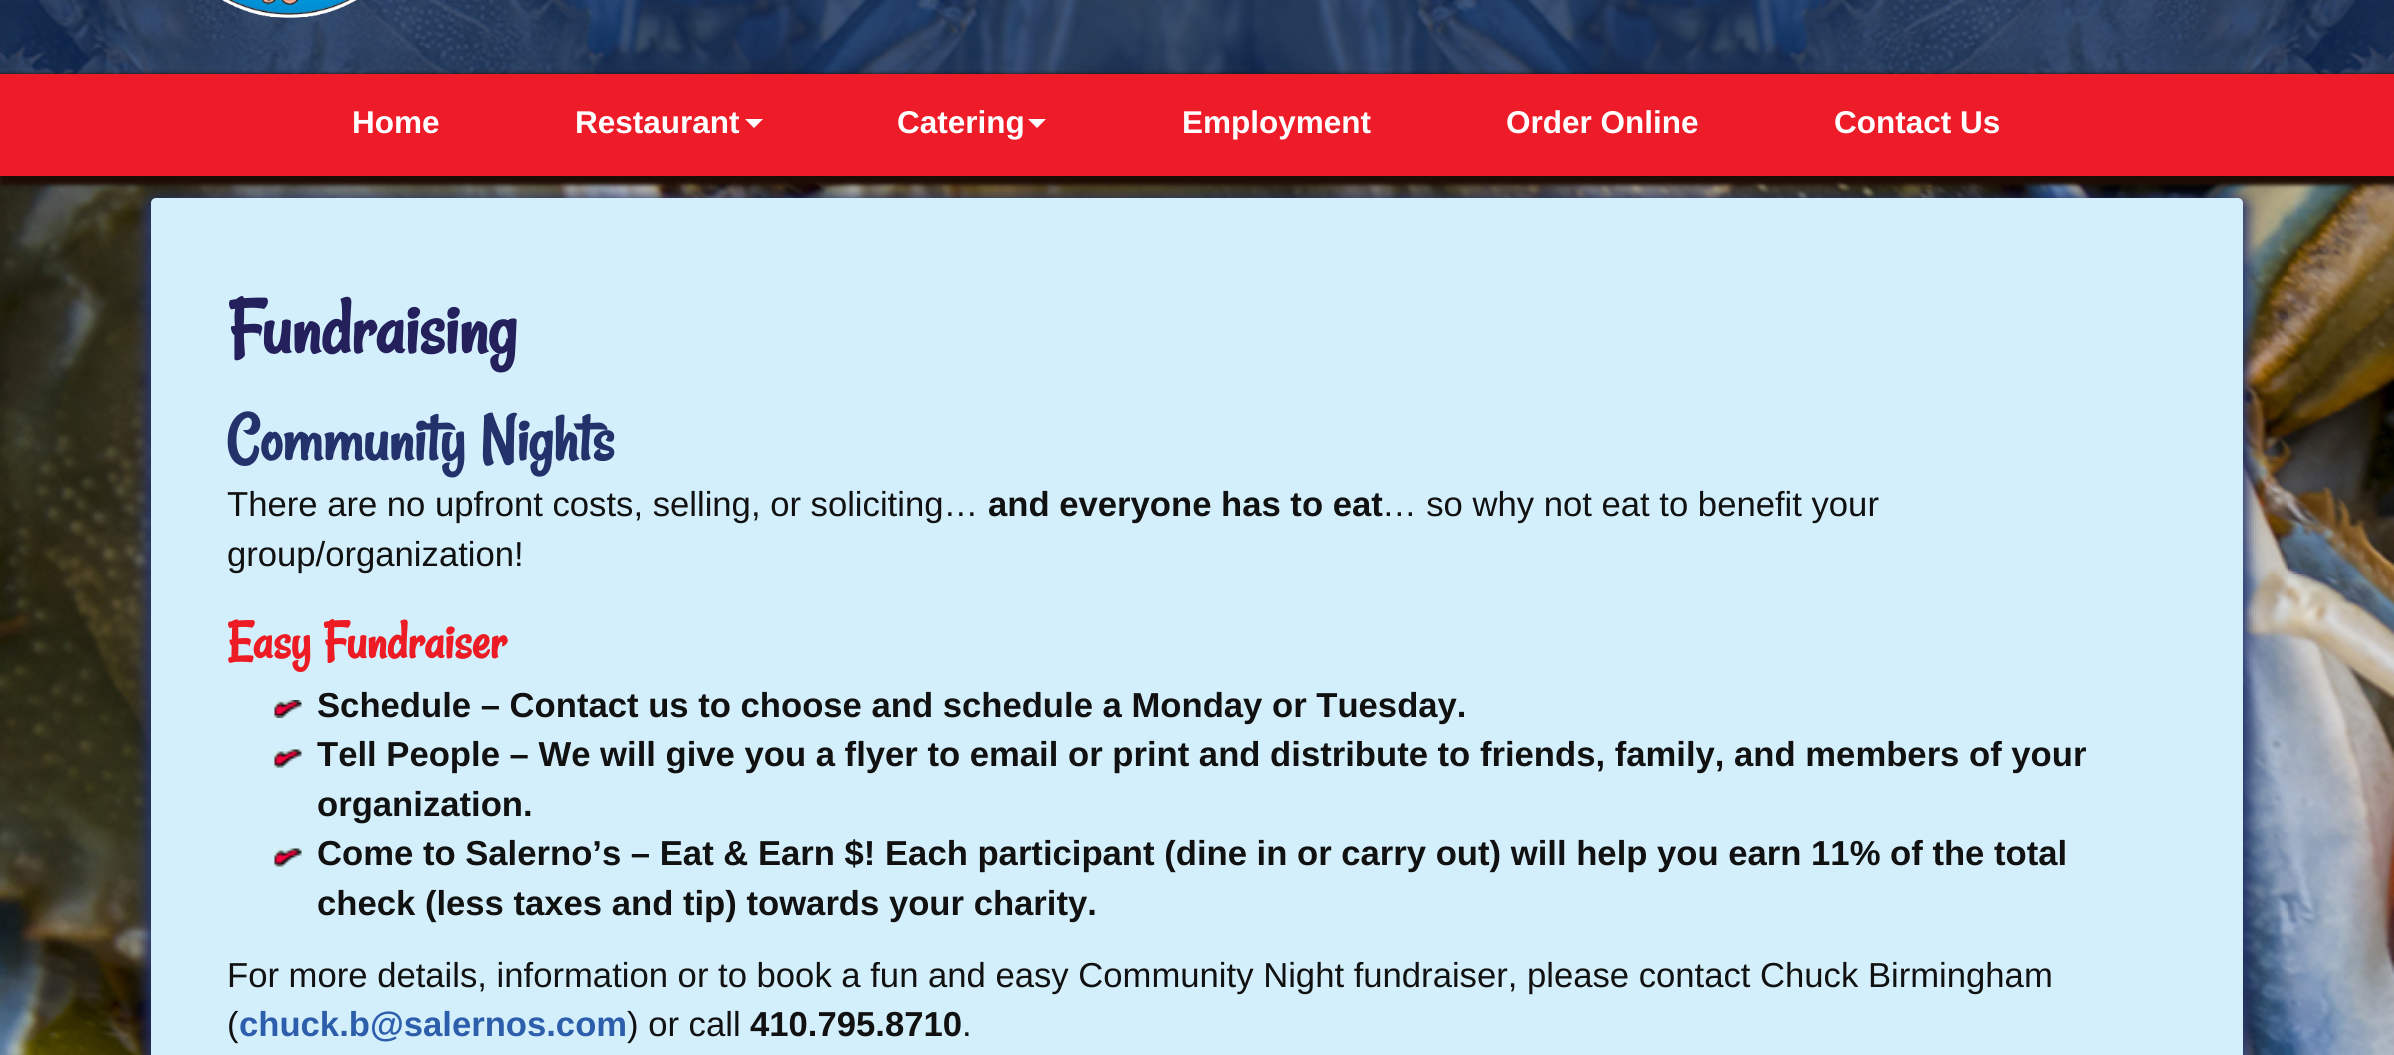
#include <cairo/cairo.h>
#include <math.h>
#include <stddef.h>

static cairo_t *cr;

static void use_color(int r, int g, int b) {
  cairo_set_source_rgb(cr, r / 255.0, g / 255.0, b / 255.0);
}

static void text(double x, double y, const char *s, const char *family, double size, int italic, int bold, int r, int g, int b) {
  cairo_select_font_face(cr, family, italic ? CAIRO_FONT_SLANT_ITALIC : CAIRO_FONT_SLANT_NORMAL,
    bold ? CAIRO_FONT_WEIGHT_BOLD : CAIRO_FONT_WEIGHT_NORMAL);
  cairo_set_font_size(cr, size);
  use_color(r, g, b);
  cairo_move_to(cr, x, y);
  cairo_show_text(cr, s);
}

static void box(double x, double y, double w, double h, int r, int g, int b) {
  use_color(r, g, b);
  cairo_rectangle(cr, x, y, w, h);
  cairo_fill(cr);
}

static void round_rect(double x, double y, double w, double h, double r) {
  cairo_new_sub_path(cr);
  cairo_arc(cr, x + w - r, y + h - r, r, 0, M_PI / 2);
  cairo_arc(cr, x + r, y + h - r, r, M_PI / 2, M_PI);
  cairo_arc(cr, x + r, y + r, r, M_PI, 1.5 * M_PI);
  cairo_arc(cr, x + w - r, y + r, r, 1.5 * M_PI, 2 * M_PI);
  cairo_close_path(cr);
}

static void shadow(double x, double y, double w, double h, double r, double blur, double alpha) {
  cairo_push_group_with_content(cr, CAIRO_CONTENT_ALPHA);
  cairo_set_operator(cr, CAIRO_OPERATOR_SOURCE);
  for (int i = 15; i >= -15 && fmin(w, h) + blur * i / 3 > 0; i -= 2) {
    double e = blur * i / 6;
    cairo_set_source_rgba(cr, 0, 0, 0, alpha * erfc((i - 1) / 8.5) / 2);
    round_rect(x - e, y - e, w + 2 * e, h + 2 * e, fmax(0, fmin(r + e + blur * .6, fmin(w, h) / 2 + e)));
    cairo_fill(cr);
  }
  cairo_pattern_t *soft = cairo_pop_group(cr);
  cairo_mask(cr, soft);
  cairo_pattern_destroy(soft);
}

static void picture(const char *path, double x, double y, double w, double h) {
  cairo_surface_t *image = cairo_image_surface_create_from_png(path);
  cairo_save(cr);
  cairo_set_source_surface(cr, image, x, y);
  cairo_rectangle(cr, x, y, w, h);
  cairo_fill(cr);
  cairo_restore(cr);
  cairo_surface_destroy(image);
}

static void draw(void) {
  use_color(255, 255, 255);
  cairo_paint(cr);
  picture("img_01.png", 0, 176, 2394, 879);
  picture("img_02.png", 0, 0, 2394, 74);
  picture("img_03.png", 222, 0, 135, 18);
  use_color(29, 12, 5);
  shadow(0, 74, 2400, 111, 0, 2, 1);
  box(0, 74, 2394, 102, 237, 28, 40);
  use_color(255, 255, 255);
  cairo_new_path(cr);
  cairo_move_to(cr, 745, 119);
  cairo_line_to(cr, 763, 119);
  cairo_line_to(cr, 754, 128);
  cairo_close_path(cr);
  cairo_fill(cr);
  cairo_new_path(cr);
  cairo_move_to(cr, 1028, 119);
  cairo_line_to(cr, 1046, 119);
  cairo_line_to(cr, 1037, 128);
  cairo_close_path(cr);
  cairo_fill(cr);
  use_color(36, 50, 107);
  shadow(146, 198, 2102, 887, 9, 7, 1);
  use_color(212, 239, 252);
  round_rect(151, 198, 2092, 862, 5);
  cairo_fill(cr);
  picture("img_04.png", 274, 700, 28, 18);
  picture("img_05.png", 274, 749, 28, 19);
  picture("img_05.png", 274, 848, 28, 19);
  text(352, 133, "Home", "Liberation Sans", 31.5, 0, 1, 255, 255, 255);
  text(575, 133, "Restaurant", "Liberation Sans", 31.5, 0, 1, 255, 255, 255);
  text(897, 133, "Catering", "Liberation Sans", 31.5, 0, 1, 255, 255, 255);
  text(1182, 133, "Employment", "Liberation Sans", 31.5, 0, 1, 255, 255, 255);
  text(1506, 133, "Order Online", "Liberation Sans", 31.5, 0, 1, 255, 255, 255);
  text(1834, 133, "Contact Us", "Liberation Sans", 31.5, 0, 1, 255, 255, 255);
  text(227, 353, "Fundraising", "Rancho", 81, 0, 1, 36, 32, 92);
  text(227, 460, "Community Nights", "Rancho", 69.25, 0, 1, 36, 50, 107);
  text(227, 516, "There are no upfront costs, selling, or soliciting…", "Liberation Sans", 34.65, 0, 0, 17, 17, 17);
  text(988, 516, "and everyone has to eat", "Liberation Sans", 34.65, 0, 1, 17, 17, 17);
  text(1382, 516, "… so why not eat to benefit your", "Liberation Sans", 34.65, 0, 0, 17, 17, 17);
  text(227, 566, "group/organization!", "Liberation Sans", 34.65, 0, 0, 17, 17, 17);
  text(227, 658, "Easy Fundraiser", "Rancho", 55.5, 0, 1, 237, 28, 36);
  text(317, 717, "Schedule – Contact us to choose and schedule a Monday or Tuesday.", "Liberation Sans", 34.65, 0, 1, 17, 17, 17);
  text(317, 766, "Tell People – We will give you a flyer to email or print and distribute to friends, family, and members of your", "Liberation Sans", 34.65, 0, 1, 17, 17, 17);
  text(317, 816, "organization.", "Liberation Sans", 34.65, 0, 1, 17, 17, 17);
  text(317, 865, "Come to Salerno’s – Eat & Earn $!", "Liberation Sans", 34.65, 0, 1, 17, 17, 17);
  text(885, 865, "Each participant (dine in or carry out) will help you earn 11% of the total", "Liberation Sans", 34.65, 0, 1, 17, 17, 17);
  text(317, 915, "check (less taxes and tip) towards your charity.", "Liberation Sans", 34.65, 0, 1, 17, 17, 17);
  text(227, 987, "For more details, information or to book a fun and easy Community Night fundraiser, please contact Chuck Birmingham", "Liberation Sans", 34.65, 0, 0, 17, 17, 17);
  text(227, 1036, "(", "Liberation Sans", 34.65, 0, 0, 17, 17, 17);
  text(239, 1036, "chuck.b@salernos.com", "Liberation Sans", 34.65, 0, 1, 45, 94, 172);
  text(627, 1036, ") or call", "Liberation Sans", 34.65, 0, 0, 17, 17, 17);
  text(750, 1036, "410.795.8710", "Liberation Sans", 34.65, 0, 1, 17, 17, 17);
  text(962, 1036, ".", "Liberation Sans", 34.65, 0, 0, 17, 17, 17);
}

int main(void) {
  cairo_surface_t *surface = cairo_image_surface_create(CAIRO_FORMAT_RGB24, 2394, 1055);
  cr = cairo_create(surface);
  cairo_font_options_t *options = cairo_font_options_create();
  cairo_font_options_set_hint_metrics(options, CAIRO_HINT_METRICS_OFF);
  cairo_font_options_set_hint_style(options, CAIRO_HINT_STYLE_NONE);
  cairo_set_font_options(cr, options);
  cairo_set_miter_limit(cr, 4);
  draw();
  cairo_surface_write_to_png(surface, "out.png");
  cairo_font_options_destroy(options);
  cairo_destroy(cr);
  cairo_surface_destroy(surface);
  return 0;
}
